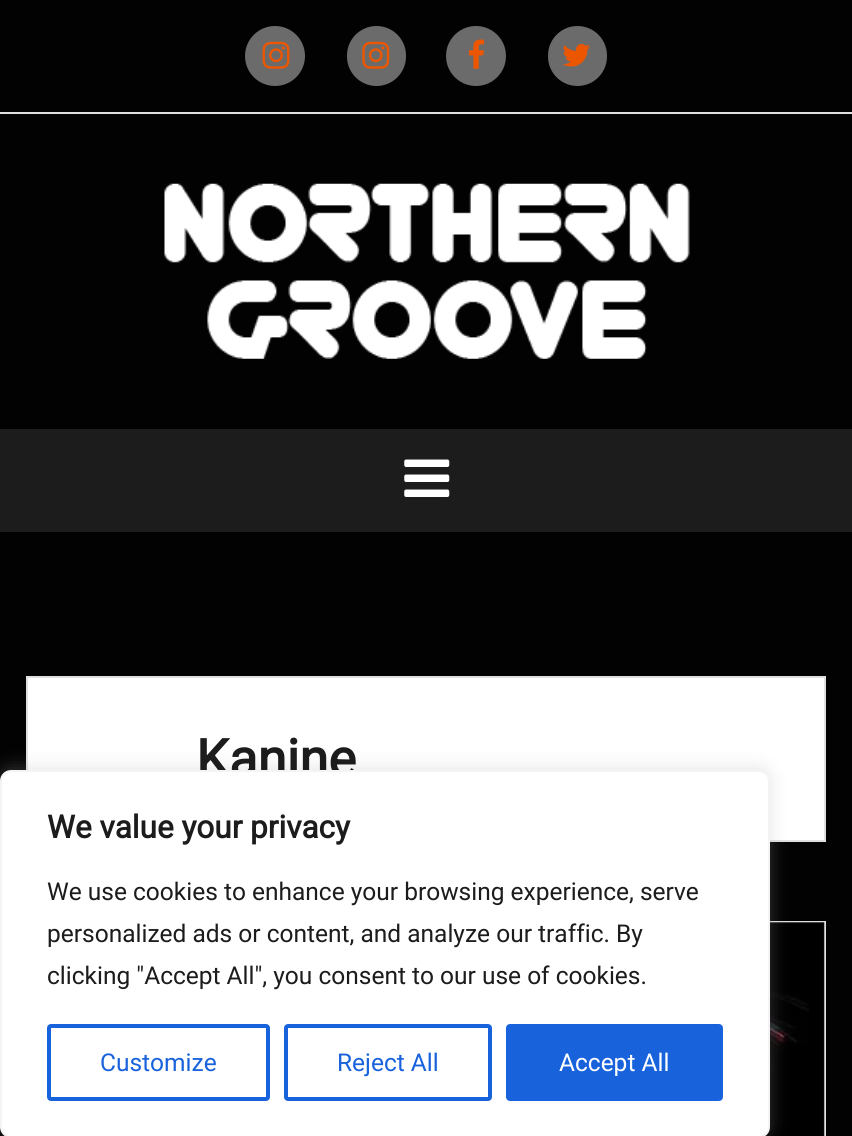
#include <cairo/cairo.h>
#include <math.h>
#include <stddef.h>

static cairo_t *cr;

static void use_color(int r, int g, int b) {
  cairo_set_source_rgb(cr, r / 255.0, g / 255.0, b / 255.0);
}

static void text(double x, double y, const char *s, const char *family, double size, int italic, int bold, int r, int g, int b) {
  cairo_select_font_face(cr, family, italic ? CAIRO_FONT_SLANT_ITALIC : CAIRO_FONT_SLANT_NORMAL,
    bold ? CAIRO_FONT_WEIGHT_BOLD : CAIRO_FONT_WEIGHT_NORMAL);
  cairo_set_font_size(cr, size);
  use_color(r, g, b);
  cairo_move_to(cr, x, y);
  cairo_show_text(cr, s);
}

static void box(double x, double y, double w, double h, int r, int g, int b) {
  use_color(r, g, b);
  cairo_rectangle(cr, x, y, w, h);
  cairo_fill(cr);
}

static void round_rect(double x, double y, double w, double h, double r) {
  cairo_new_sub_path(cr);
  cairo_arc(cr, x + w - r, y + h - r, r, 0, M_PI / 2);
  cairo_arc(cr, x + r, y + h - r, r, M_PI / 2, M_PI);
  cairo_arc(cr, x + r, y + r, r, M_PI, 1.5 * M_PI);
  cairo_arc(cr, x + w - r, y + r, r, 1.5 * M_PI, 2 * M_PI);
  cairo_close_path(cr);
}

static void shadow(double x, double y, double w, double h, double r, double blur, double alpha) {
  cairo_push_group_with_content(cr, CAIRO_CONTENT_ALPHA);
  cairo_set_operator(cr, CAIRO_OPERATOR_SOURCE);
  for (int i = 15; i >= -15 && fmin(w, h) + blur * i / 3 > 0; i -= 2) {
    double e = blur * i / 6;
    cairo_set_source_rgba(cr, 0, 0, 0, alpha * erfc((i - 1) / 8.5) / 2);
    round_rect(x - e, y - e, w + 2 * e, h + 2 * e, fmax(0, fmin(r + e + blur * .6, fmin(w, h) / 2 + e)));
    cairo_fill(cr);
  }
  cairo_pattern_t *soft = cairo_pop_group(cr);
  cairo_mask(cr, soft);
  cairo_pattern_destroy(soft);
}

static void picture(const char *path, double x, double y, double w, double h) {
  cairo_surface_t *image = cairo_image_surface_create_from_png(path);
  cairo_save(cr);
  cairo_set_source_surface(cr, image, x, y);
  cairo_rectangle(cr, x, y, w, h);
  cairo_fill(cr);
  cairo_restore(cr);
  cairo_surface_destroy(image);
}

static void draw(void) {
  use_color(2, 2, 2);
  cairo_paint(cr);
  box(0, 112, 852, 2, 224, 224, 224);
  use_color(107, 107, 107);
  cairo_arc(cr, 275, 56, 30, 0, 2 * M_PI);
  cairo_fill(cr);
  picture("img_01.png", 262, 41, 28, 28);
  round_rect(347, 26, 59, 60, 29.5);
  cairo_fill(cr);
  picture("img_02.png", 362, 41, 28, 28);
  cairo_arc(cr, 476, 56, 30, 0, 2 * M_PI);
  cairo_fill(cr);
  picture("img_03.png", 468, 39, 17, 30);
  round_rect(548, 26, 59, 60, 29.5);
  cairo_fill(cr);
  picture("img_04.png", 562, 44, 28, 23);
  picture("img_05.png", 164, 183, 526, 176);
  box(0, 429, 852, 103, 28, 28, 28);
  picture("img_06.png", 404, 459, 46, 38);
  use_color(255, 255, 255);
  cairo_rectangle(cr, 27, 677, 798, 164);
  cairo_fill_preserve(cr);
  use_color(224, 224, 224);
  cairo_stroke(cr);
  cairo_rectangle(cr, 27, 922, 798, 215);
  cairo_stroke(cr);
  picture("img_07.png", 765, 922, 60, 214);
  use_color(172, 171, 171);
  shadow(0, 768, 770, 368, 11, 9, 0.3);
  text(196, 777, "Kanine", "Roboto", 52.5, 0, 1, 28, 28, 28);
  use_color(255, 255, 255);
  round_rect(1, 771, 768, 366, 10);
  cairo_fill_preserve(cr);
  use_color(244, 244, 244);
  cairo_stroke(cr);
  text(47, 838, "We value your privacy", "Roboto", 31.5, 0, 1, 28, 28, 28);
  text(47, 900, "We use cookies to enhance your browsing experience, serve", "Roboto", 24.5, 0, 0, 28, 28, 28);
  text(47, 942, "personalized ads or content, and analyze our traffic. By", "Roboto", 24.5, 0, 0, 28, 28, 28);
  text(47, 984, "clicking \"Accept All\", you consent to our use of cookies.", "Roboto", 24.5, 0, 0, 28, 28, 28);
  round_rect(49, 1026, 219, 73, 2);
  use_color(24, 99, 220);
  cairo_set_line_width(cr, 4);
  cairo_stroke(cr);
  text(100, 1071, "Customize", "Roboto", 24.5, 0, 0, 24, 99, 220);
  round_rect(286, 1026, 204, 73, 2);
  cairo_stroke(cr);
  text(337, 1071, "Reject All", "Roboto", 24.5, 0, 0, 24, 99, 220);
  round_rect(508, 1026, 213, 73, 2);
  cairo_fill_preserve(cr);
  cairo_stroke(cr);
  text(559, 1071, "Accept All", "Roboto", 24.5, 0, 0, 255, 255, 255);
}

int main(void) {
  cairo_surface_t *surface = cairo_image_surface_create(CAIRO_FORMAT_RGB24, 852, 1136);
  cr = cairo_create(surface);
  cairo_font_options_t *options = cairo_font_options_create();
  cairo_font_options_set_hint_metrics(options, CAIRO_HINT_METRICS_OFF);
  cairo_font_options_set_hint_style(options, CAIRO_HINT_STYLE_NONE);
  cairo_set_font_options(cr, options);
  cairo_set_miter_limit(cr, 4);
  draw();
  cairo_surface_write_to_png(surface, "out.png");
  cairo_font_options_destroy(options);
  cairo_destroy(cr);
  cairo_surface_destroy(surface);
  return 0;
}
